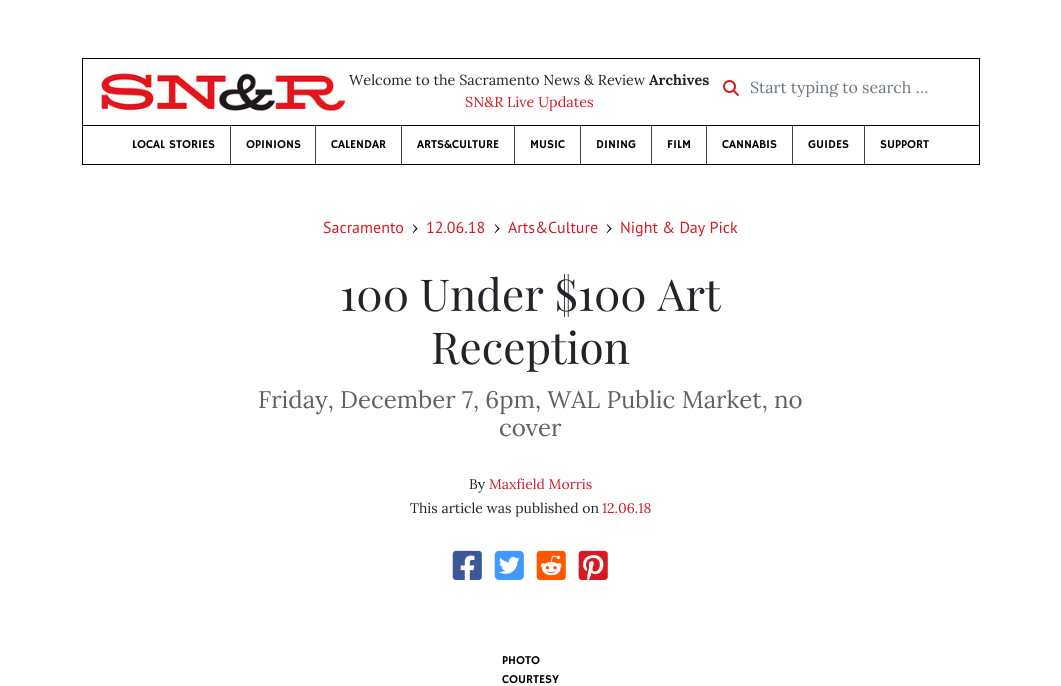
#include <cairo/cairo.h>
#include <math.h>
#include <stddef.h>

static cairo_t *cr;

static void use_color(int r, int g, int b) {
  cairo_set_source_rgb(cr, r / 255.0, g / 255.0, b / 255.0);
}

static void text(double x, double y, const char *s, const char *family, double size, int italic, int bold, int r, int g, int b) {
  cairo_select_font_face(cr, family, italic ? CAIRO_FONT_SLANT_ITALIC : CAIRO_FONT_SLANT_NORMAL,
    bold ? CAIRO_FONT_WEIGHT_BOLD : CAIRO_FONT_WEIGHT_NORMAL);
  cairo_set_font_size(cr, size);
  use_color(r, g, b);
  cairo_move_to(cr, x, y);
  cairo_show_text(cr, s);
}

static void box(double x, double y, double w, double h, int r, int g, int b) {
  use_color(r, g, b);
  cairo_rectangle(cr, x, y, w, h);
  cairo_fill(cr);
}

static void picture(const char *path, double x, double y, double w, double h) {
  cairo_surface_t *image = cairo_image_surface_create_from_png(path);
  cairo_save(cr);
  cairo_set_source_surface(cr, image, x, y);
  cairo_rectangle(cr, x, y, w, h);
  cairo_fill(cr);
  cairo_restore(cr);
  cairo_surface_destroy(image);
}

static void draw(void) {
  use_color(255, 255, 255);
  cairo_paint(cr);
  box(82, 58, 898, 1, 0, 0, 0);
  box(979, 58, 1, 67, 0, 0, 0);
  box(82, 58, 1, 67, 0, 0, 0);
  picture("img_01.png", 101, 73, 245, 38);
  picture("img_02.png", 723, 80, 16, 16);
  cairo_rectangle(cr, 82.5, 125.5, 897, 39);
  cairo_set_line_width(cr, 1);
  cairo_stroke(cr);
  box(230, 126, 1, 38, 66, 66, 66);
  box(315, 126, 1, 38, 66, 66, 66);
  box(401, 126, 1, 38, 66, 66, 66);
  box(514, 126, 1, 38, 66, 66, 66);
  box(580, 126, 1, 38, 66, 66, 66);
  box(651, 126, 1, 38, 66, 66, 66);
  box(706, 126, 1, 38, 66, 66, 66);
  box(792, 126, 1, 38, 66, 66, 66);
  box(864, 126, 1, 38, 66, 66, 66);
  picture("img_03.png", 452, 550, 30, 30);
  picture("img_04.png", 494, 550, 30, 30);
  picture("img_05.png", 536, 550, 30, 30);
  picture("img_06.png", 578, 550, 30, 30);
  text(349, 85, "Welcome to the Sacramento News & Review", "Lora", 14.4, 0, 0, 33, 37, 41);
  text(649, 85, "Archives", "Lora", 14.4, 0, 1, 33, 37, 41);
  text(465, 107, "SN&R Live Updates", "Lora", 14.4, 0, 0, 213, 26, 35);
  cairo_save(cr);
  cairo_rectangle(cr, 750, 77, 202, 20);
  cairo_clip(cr);
  text(750, 93, "Start typing to search …", "Lora", 16, 0, 0, 108, 117, 125);
  cairo_restore(cr);
  text(132, 148, "LOCAL STORIES", "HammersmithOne", 12, 0, 0, 0, 0, 0);
  text(246, 148, "OPINIONS", "HammersmithOne", 12, 0, 0, 0, 0, 0);
  text(331, 148, "CALENDAR", "HammersmithOne", 12, 0, 0, 0, 0, 0);
  text(417, 148, "ARTS&CULTURE", "HammersmithOne", 12, 0, 0, 0, 0, 0);
  text(530, 148, "MUSIC", "HammersmithOne", 12, 0, 0, 0, 0, 0);
  text(596, 148, "DINING", "HammersmithOne", 12, 0, 0, 0, 0, 0);
  text(667, 148, "FILM", "HammersmithOne", 12, 0, 0, 0, 0, 0);
  text(722, 148, "CANNABIS", "HammersmithOne", 12, 0, 0, 0, 0, 0);
  text(808, 148, "GUIDES", "HammersmithOne", 12, 0, 0, 0, 0, 0);
  text(880, 148, "SUPPORT", "HammersmithOne", 12, 0, 0, 0, 0, 0);
  text(323, 233, "Sacramento", "PT Sans", 16, 0, 0, 213, 26, 35);
  text(412, 233, "›", "Lora", 16, 0, 0, 0, 0, 0);
  text(426, 233, "12.06.18", "PT Sans", 16, 0, 0, 213, 26, 35);
  text(494, 233, "›", "Lora", 16, 0, 0, 0, 0, 0);
  text(508, 233, "Arts&Culture", "PT Sans", 16, 0, 0, 213, 26, 35);
  text(606, 233, "›", "Lora", 16, 0, 0, 0, 0, 0);
  text(620, 233, "Night & Day Pick", "PT Sans", 16, 0, 0, 213, 26, 35);
  text(340, 311, "100 Under $100 Art", "Playfair Display", 44, 0, 0, 33, 37, 41);
  text(431, 364, "Reception", "Playfair Display", 44, 0, 0, 33, 37, 41);
  text(258, 408, "Friday, December 7, 6pm, WAL Public Market, no", "Lora", 24, 0, 0, 97, 97, 97);
  text(499, 436, "cover", "Lora", 24, 0, 0, 97, 97, 97);
  text(469, 489, "By", "Lora", 14, 0, 0, 33, 37, 41);
  text(489, 489, "Maxfield Morris", "Lora", 14, 0, 0, 213, 26, 35);
  text(410, 513, "This article was published on", "Lora", 14, 0, 0, 33, 37, 41);
  text(602, 513, "12.06.18", "Lora", 14, 0, 0, 213, 26, 35);
  text(502, 664, "PHOTO", "HammersmithOne", 12, 0, 0, 0, 0, 0);
  text(502, 683, "COURTESY", "HammersmithOne", 12, 0, 0, 0, 0, 0);
}

int main(void) {
  cairo_surface_t *surface = cairo_image_surface_create(CAIRO_FORMAT_RGB24, 1061, 686);
  cr = cairo_create(surface);
  cairo_font_options_t *options = cairo_font_options_create();
  cairo_font_options_set_hint_metrics(options, CAIRO_HINT_METRICS_OFF);
  cairo_font_options_set_hint_style(options, CAIRO_HINT_STYLE_NONE);
  cairo_set_font_options(cr, options);
  cairo_set_miter_limit(cr, 4);
  draw();
  cairo_surface_write_to_png(surface, "out.png");
  cairo_font_options_destroy(options);
  cairo_destroy(cr);
  cairo_surface_destroy(surface);
  return 0;
}
